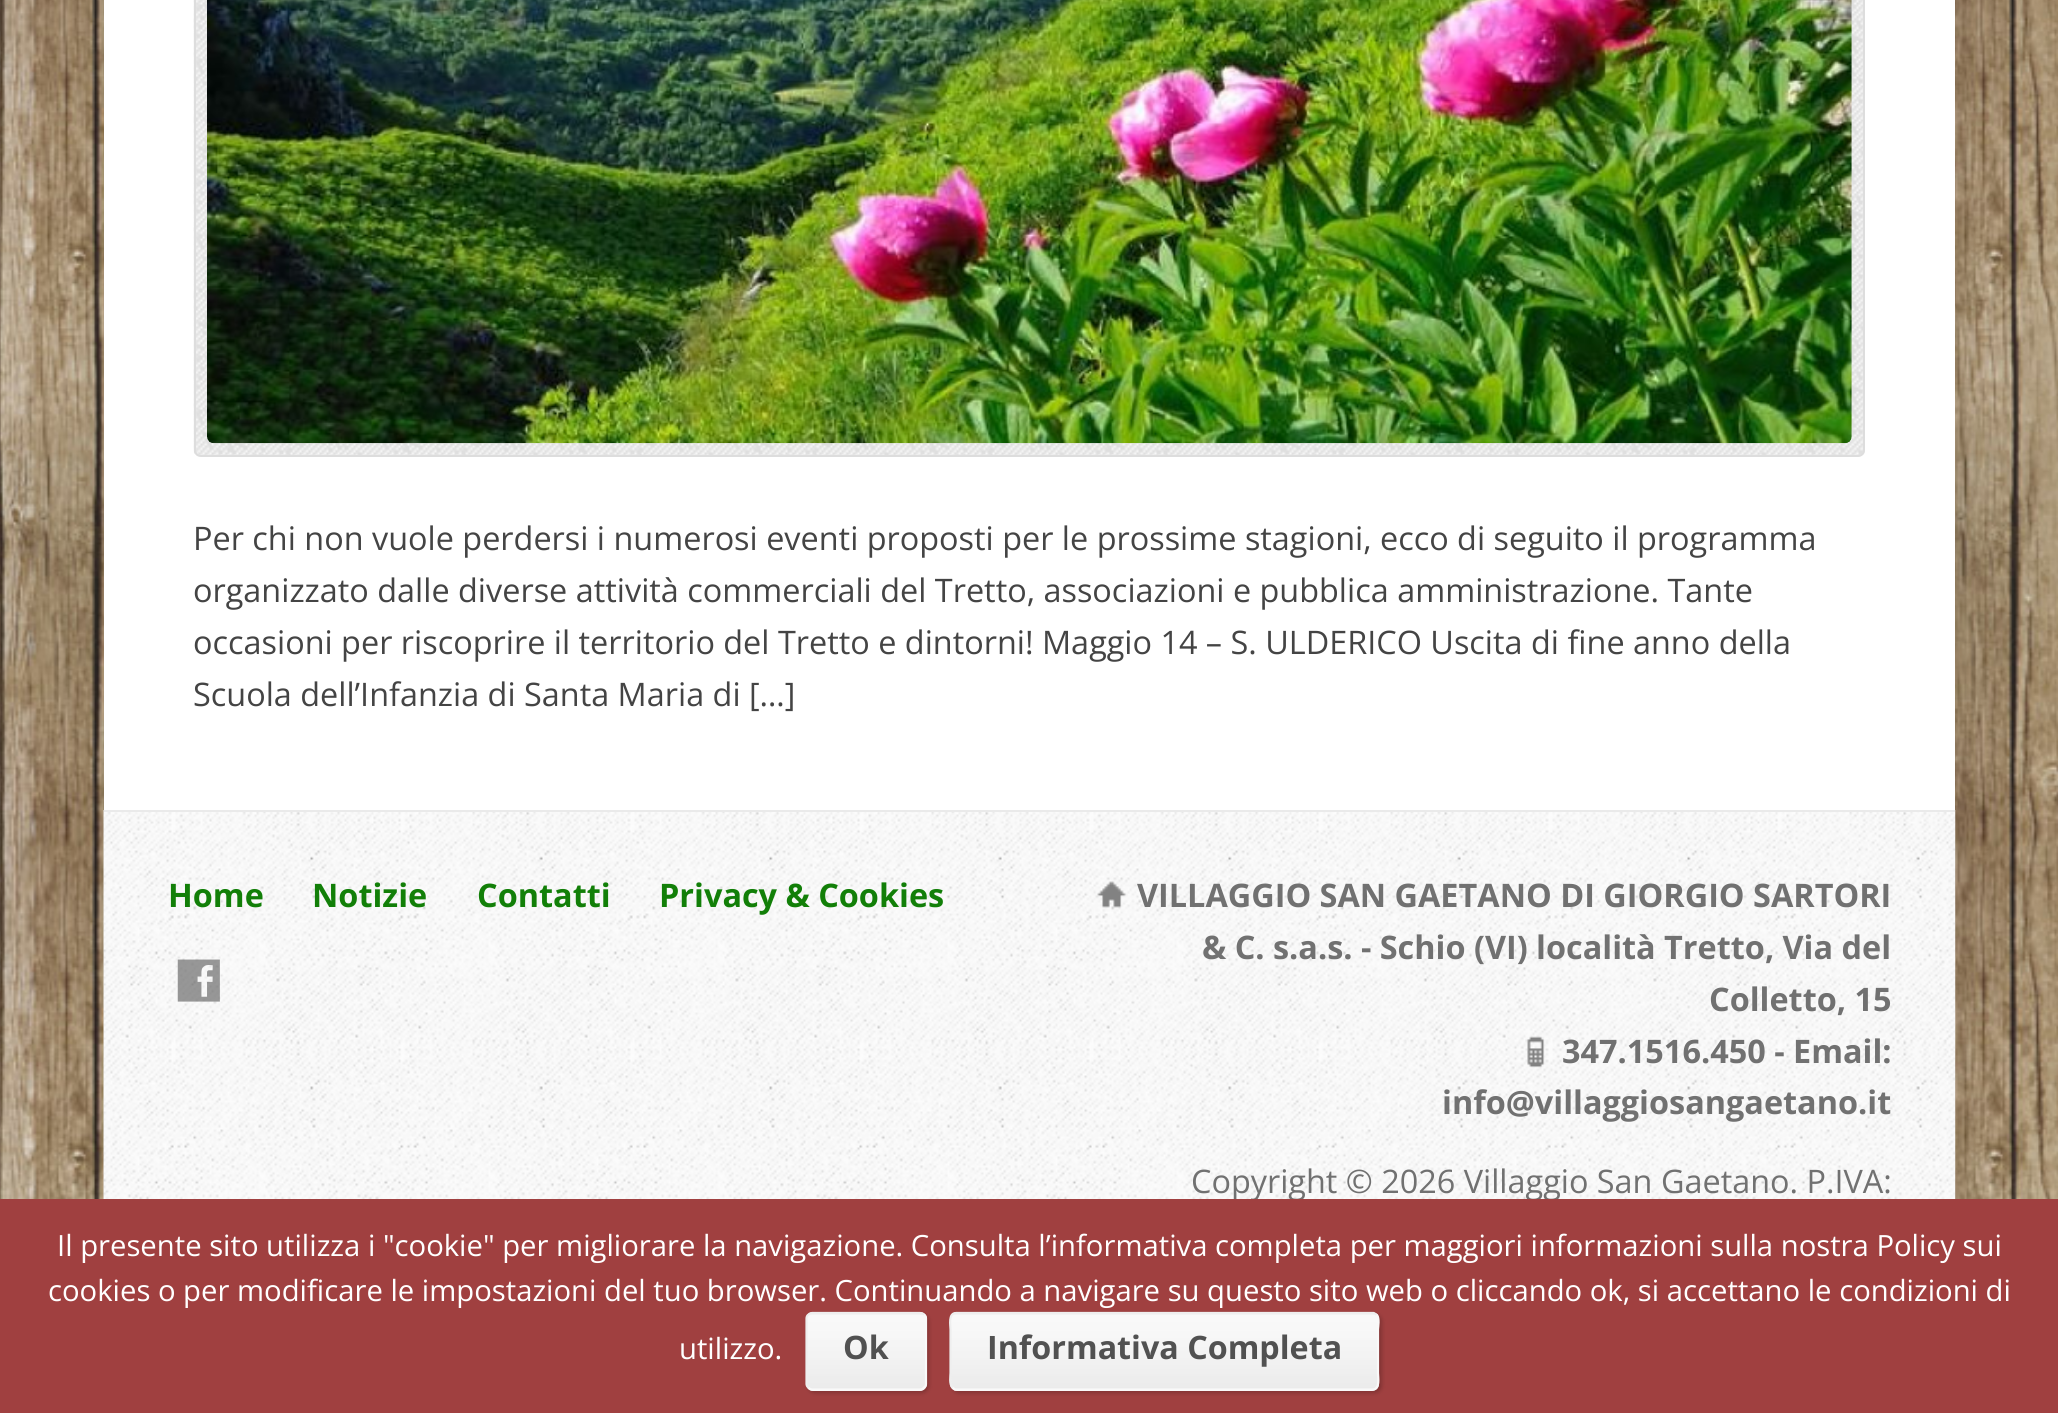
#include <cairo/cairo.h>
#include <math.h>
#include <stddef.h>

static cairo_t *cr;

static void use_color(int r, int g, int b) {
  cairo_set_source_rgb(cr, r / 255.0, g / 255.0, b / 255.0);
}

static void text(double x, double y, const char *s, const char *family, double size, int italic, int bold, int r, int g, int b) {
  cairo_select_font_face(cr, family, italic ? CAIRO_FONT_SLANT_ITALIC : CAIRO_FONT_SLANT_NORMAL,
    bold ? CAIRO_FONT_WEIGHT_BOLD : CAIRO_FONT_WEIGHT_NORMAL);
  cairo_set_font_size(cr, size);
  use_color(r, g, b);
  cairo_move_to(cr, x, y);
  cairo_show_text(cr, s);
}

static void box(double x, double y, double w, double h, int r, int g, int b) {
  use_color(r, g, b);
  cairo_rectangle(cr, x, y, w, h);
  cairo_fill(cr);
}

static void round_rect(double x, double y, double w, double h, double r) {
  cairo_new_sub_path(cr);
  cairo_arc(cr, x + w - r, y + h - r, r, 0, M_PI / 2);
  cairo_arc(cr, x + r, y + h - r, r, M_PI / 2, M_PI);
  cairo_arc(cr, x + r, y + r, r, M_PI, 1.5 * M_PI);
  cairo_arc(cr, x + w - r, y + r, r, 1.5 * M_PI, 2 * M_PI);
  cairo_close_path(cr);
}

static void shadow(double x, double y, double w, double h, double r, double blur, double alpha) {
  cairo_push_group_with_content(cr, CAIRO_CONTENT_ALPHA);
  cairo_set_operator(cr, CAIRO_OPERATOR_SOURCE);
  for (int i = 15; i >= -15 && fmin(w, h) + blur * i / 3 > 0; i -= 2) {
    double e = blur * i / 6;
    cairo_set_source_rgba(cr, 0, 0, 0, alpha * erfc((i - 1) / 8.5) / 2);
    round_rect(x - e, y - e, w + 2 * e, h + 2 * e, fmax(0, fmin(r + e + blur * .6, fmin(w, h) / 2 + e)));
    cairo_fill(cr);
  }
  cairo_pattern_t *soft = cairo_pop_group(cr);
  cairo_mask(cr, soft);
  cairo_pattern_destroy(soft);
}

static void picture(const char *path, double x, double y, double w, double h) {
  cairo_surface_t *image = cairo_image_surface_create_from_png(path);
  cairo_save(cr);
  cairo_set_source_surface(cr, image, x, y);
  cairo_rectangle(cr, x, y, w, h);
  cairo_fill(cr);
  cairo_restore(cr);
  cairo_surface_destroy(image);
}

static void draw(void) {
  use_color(255, 255, 255);
  cairo_paint(cr);
  picture("img_01.png", 0, 0, 2058, 1199);
  use_color(0, 0, 0);
  shadow(104, -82, 1851, 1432, 14, 22.5, 0.12);
  box(104, 0, 1851, 810, 255, 255, 255);
  picture("img_02.png", 193, 0, 1672, 457);
  round_rect(195, -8, 1669, 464, 6);
  use_color(221, 221, 221);
  cairo_stroke(cr);
  picture("img_03.png", 207, 0, 1645, 444);
  picture("img_04.png", 103, 810, 1853, 389);
  box(104, 810, 1851, 2, 234, 234, 234);
  picture("img_05.png", 177, 959, 43, 43);
  picture("img_06.png", 1097, 881, 29, 27);
  picture("img_07.png", 1527, 1036, 18, 32);
  text(193, 550, "Per chi non vuole perdersi i numerosi eventi proposti per le prossime stagioni, ecco di seguito il programma", "Open Sans", 32.4, 0, 0, 68, 68, 68);
  text(193, 602, "organizzato dalle diverse attività commerciali del Tretto, associazioni e pubblica amministrazione. Tante", "Open Sans", 32.4, 0, 0, 68, 68, 68);
  text(193, 654, "occasioni per riscoprire il territorio del Tretto e dintorni! Maggio 14 – S. ULDERICO Uscita di fine anno della", "Open Sans", 32.4, 0, 0, 68, 68, 68);
  text(193, 706, "Scuola dell’Infanzia di Santa Maria di […]", "Open Sans", 32.4, 0, 0, 68, 68, 68);
  text(168, 907, "Home", "Open Sans", 32.4, 0, 1, 18, 127, 8);
  text(312, 907, "Notizie", "Open Sans", 32.4, 0, 1, 18, 127, 8);
  text(477, 907, "Contatti", "Open Sans", 32.4, 0, 1, 18, 127, 8);
  text(659, 907, "Privacy & Cookies", "Open Sans", 32.4, 0, 1, 18, 127, 8);
  text(1137, 907, "VILLAGGIO SAN GAETANO DI GIORGIO SARTORI", "Open Sans", 32.4, 0, 1, 113, 113, 113);
  text(1202, 959, "& C. s.a.s. - Schio (VI) località Tretto, Via del", "Open Sans", 32.4, 0, 1, 113, 113, 113);
  text(1709, 1011, "Colletto, 15", "Open Sans", 32.4, 0, 1, 113, 113, 113);
  text(1562, 1063, "347.1516.450 - Email:", "Open Sans", 32.4, 0, 1, 113, 113, 113);
  text(1442, 1114, "info@villaggiosangaetano.it", "Open Sans", 32.4, 0, 1, 113, 113, 113);
  text(1191, 1193, "Copyright © 2026 Villaggio San Gaetano. P.IVA:", "Open Sans", 32.4, 0, 0, 113, 113, 113);
  box(0, 1199, 2058, 214, 160, 64, 64);
  text(57, 1256, "Il presente sito utilizza i \"cookie\" per migliorare la navigazione. Consulta l’informativa completa per maggiori informazioni sulla nostra Policy sui", "Open Sans", 29.25, 0, 0, 255, 255, 255);
  text(48, 1301, "cookies o per modificare le impostazioni del tuo browser. Continuando a navigare su questo sito web o cliccando ok, si accettano le condizioni di", "Open Sans", 29.25, 0, 0, 255, 255, 255);
  text(679, 1359, "utilizzo.", "Open Sans", 29.25, 0, 0, 255, 255, 255);
  use_color(0, 0, 0);
  shadow(808, 1314, 121, 79, 7, 2, 0.2);
  use_color(249, 249, 249);
  round_rect(806, 1312, 121, 79, 7);
  cairo_fill(cr);
  picture("img_08.png", 806, 1312, 121, 78);
  cairo_new_path(cr);
  cairo_move_to(cr, 924, 1314.5);
  cairo_curve_to(cr, 925.5, 1315.5, 926, 1317, 926, 1318.5);
  cairo_line_to(cr, 926, 1384);
  cairo_curve_to(cr, 926, 1385, 925.5, 1386.5, 924, 1387.5);
  cairo_curve_to(cr, 923, 1389, 921.5, 1389.5, 920, 1389.5);
  cairo_line_to(cr, 812, 1389.5);
  cairo_curve_to(cr, 811, 1389.5, 809.5, 1389, 808.5, 1387.5);
  cairo_set_line_width(cr, 2.2);
  cairo_stroke(cr);
  cairo_new_path(cr);
  cairo_move_to(cr, 808.5, 1387.5);
  cairo_curve_to(cr, 807, 1386.5, 806.5, 1385, 806.5, 1384);
  cairo_line_to(cr, 806.5, 1318.5);
  cairo_curve_to(cr, 806.5, 1317, 807, 1315.5, 808.5, 1314.5);
  cairo_curve_to(cr, 809.5, 1313.5, 811, 1313, 812, 1313);
  cairo_line_to(cr, 920, 1313);
  cairo_curve_to(cr, 921.5, 1313, 923, 1313.5, 924, 1314.5);
  use_color(238, 238, 238);
  cairo_stroke(cr);
  text(843, 1359, "Ok", "Open Sans", 32.25, 0, 1, 81, 81, 81);
  use_color(0, 0, 0);
  shadow(952, 1314, 430, 79, 7, 2, 0.2);
  use_color(249, 249, 249);
  round_rect(950, 1312, 429, 79, 7);
  cairo_fill(cr);
  picture("img_09.png", 950, 1312, 429, 78);
  cairo_new_path(cr);
  cairo_move_to(cr, 1376.5, 1314.5);
  cairo_curve_to(cr, 1380, 1318, 1378, 1327, 1378, 1329.5);
  cairo_line_to(cr, 1378, 1373);
  cairo_curve_to(cr, 1378, 1377, 1380.5, 1389.5, 1372.5, 1389.5);
  cairo_line_to(cr, 955, 1389.5);
  cairo_line_to(cr, 952.5, 1387.5);
  cairo_stroke(cr);
  cairo_new_path(cr);
  cairo_move_to(cr, 952.5, 1387.5);
  cairo_curve_to(cr, 949, 1384.5, 950.5, 1375.5, 950.5, 1373);
  cairo_line_to(cr, 950.5, 1329.5);
  cairo_curve_to(cr, 950.5, 1325.5, 948, 1313, 956, 1313);
  cairo_line_to(cr, 1373.5, 1313);
  cairo_line_to(cr, 1376.5, 1314.5);
  use_color(238, 238, 238);
  cairo_stroke(cr);
  text(987, 1359, "Informativa Completa", "Open Sans", 32.25, 0, 1, 81, 81, 81);
}

int main(void) {
  cairo_surface_t *surface = cairo_image_surface_create(CAIRO_FORMAT_RGB24, 2058, 1413);
  cr = cairo_create(surface);
  cairo_font_options_t *options = cairo_font_options_create();
  cairo_font_options_set_hint_metrics(options, CAIRO_HINT_METRICS_OFF);
  cairo_font_options_set_hint_style(options, CAIRO_HINT_STYLE_NONE);
  cairo_set_font_options(cr, options);
  cairo_set_miter_limit(cr, 4);
  draw();
  cairo_surface_write_to_png(surface, "out.png");
  cairo_font_options_destroy(options);
  cairo_destroy(cr);
  cairo_surface_destroy(surface);
  return 0;
}
